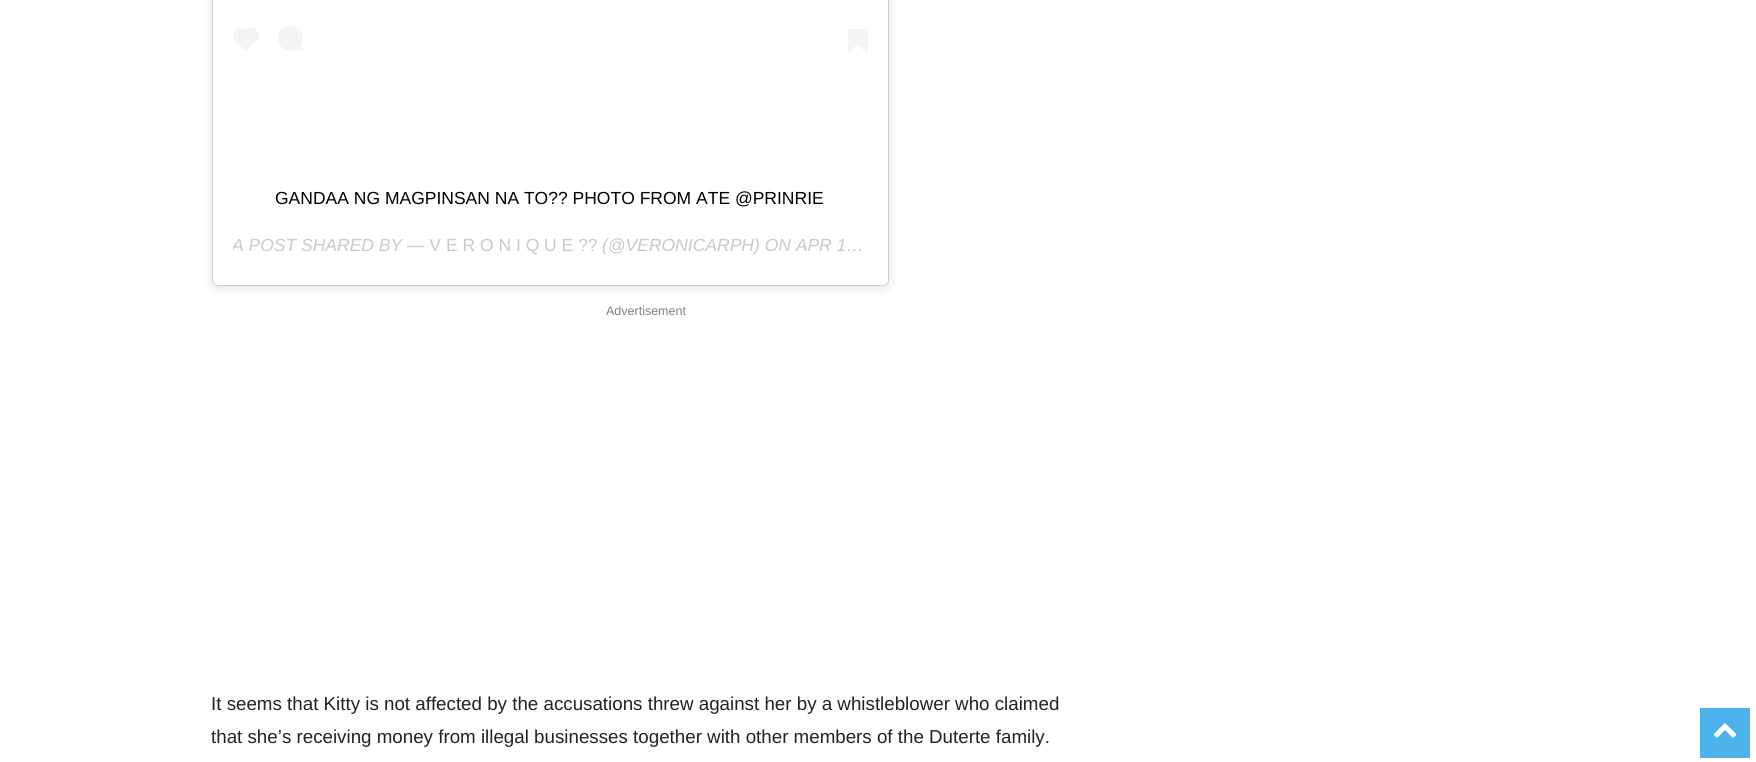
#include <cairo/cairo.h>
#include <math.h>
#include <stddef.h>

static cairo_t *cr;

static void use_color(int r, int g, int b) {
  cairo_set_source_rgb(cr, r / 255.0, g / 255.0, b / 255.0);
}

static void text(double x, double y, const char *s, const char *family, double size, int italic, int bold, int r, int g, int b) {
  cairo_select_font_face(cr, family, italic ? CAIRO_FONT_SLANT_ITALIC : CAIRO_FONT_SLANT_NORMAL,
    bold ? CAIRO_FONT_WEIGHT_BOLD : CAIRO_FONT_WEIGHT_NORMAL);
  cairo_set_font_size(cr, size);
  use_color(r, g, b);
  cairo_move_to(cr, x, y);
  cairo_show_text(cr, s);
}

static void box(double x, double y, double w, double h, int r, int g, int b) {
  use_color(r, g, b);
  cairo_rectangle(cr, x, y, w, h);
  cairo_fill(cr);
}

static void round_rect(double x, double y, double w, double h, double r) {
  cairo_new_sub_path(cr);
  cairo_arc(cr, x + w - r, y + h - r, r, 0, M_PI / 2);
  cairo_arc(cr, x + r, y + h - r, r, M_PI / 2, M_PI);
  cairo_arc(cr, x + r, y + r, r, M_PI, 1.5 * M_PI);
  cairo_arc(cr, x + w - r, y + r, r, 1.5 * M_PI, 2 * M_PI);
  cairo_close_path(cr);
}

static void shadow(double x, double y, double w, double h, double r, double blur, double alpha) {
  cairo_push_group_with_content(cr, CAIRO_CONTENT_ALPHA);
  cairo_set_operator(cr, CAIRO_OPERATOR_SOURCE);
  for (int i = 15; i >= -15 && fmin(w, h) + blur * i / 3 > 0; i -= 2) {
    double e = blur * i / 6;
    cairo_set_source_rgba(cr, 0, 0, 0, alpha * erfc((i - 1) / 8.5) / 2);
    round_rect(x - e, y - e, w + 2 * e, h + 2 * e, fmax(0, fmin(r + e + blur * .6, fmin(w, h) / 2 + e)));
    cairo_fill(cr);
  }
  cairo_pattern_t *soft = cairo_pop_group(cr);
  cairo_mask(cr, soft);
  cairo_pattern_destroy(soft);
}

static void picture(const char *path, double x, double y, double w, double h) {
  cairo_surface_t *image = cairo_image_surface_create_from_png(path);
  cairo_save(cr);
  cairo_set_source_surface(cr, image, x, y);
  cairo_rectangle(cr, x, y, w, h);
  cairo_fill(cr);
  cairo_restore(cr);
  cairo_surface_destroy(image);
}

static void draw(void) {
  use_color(255, 255, 255);
  cairo_paint(cr);
  use_color(0, 0, 0);
  shadow(213, -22, 675, 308, 4, 6, 0.15);
  shadow(213, -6, 675, 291, 4, 0.5, 0.5);
  use_color(255, 255, 255);
  round_rect(213, -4, 675, 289, 4);
  cairo_fill(cr);
  use_color(244, 244, 244);
  cairo_arc(cr, 240.5, 35.5, 7.5, 0, 2 * M_PI);
  cairo_fill(cr);
  cairo_new_path(cr);
  cairo_move_to(cr, 234.5, 40);
  cairo_line_to(cr, 245.5, 29);
  cairo_line_to(cr, 257, 40);
  cairo_line_to(cr, 245.5, 51);
  cairo_close_path(cr);
  cairo_fill(cr);
  cairo_arc(cr, 251.5, 35.5, 7.5, 0, 2 * M_PI);
  cairo_fill(cr);
  cairo_arc(cr, 290.5, 38.5, 12.5, 0, 2 * M_PI);
  cairo_fill(cr);
  cairo_new_path(cr);
  cairo_move_to(cr, 297, 49.5);
  cairo_line_to(cr, 299.5, 45);
  cairo_line_to(cr, 304.5, 51);
  cairo_close_path(cr);
  cairo_fill(cr);
  box(848, 29, 20, 15, 244, 244, 244);
  cairo_new_path(cr);
  cairo_move_to(cr, 847.5, 44);
  cairo_line_to(cr, 857.5, 44);
  cairo_line_to(cr, 847.5, 54);
  cairo_close_path(cr);
  cairo_fill(cr);
  cairo_new_path(cr);
  cairo_move_to(cr, 857.5, 44);
  cairo_line_to(cr, 867.5, 44);
  cairo_line_to(cr, 867.5, 54);
  cairo_close_path(cr);
  cairo_fill(cr);
  box(1700, 708, 50, 50, 77, 178, 236);
  picture("img_01.png", 1713, 723, 24, 15);
  text(275, 204, "GANDAA NG MAGPINSAN NA TO?\077 PHOTO FROM ATE @PRINRIE", "Liberation Sans", 17.5, 0, 0, 0, 0, 0);
  cairo_save(cr);
  cairo_rectangle(cr, 233, 225, 635, 40);
  cairo_clip(cr);
  text(232, 251, "A POST SHARED BY", "Liberation Sans", 17.5, 1, 0, 201, 200, 205);
  cairo_restore(cr);
  text(407, 251, "— V E R O N I Q U E ?\077", "Liberation Sans", 17.5, 0, 0, 201, 200, 205);
  text(602, 251, "(@VERONICARPH) ON APR 1…", "Liberation Sans", 17.5, 1, 0, 201, 200, 205);
  text(606, 315, "Advertisement", "Liberation Sans", 12.5, 0, 0, 128, 128, 128);
  text(211, 710, "It seems that Kitty is not affected by the accusations threw against her by a whistleblower who claimed", "Liberation Sans", 18.75, 0, 0, 34, 34, 34);
  text(211, 743, "that she’s receiving money from illegal businesses together with other members of the Duterte family.", "Liberation Sans", 18.75, 0, 0, 34, 34, 34);
}

int main(void) {
  cairo_surface_t *surface = cairo_image_surface_create(CAIRO_FORMAT_RGB24, 1756, 762);
  cr = cairo_create(surface);
  cairo_font_options_t *options = cairo_font_options_create();
  cairo_font_options_set_hint_metrics(options, CAIRO_HINT_METRICS_OFF);
  cairo_font_options_set_hint_style(options, CAIRO_HINT_STYLE_NONE);
  cairo_set_font_options(cr, options);
  cairo_set_miter_limit(cr, 4);
  draw();
  cairo_surface_write_to_png(surface, "out.png");
  cairo_font_options_destroy(options);
  cairo_destroy(cr);
  cairo_surface_destroy(surface);
  return 0;
}
